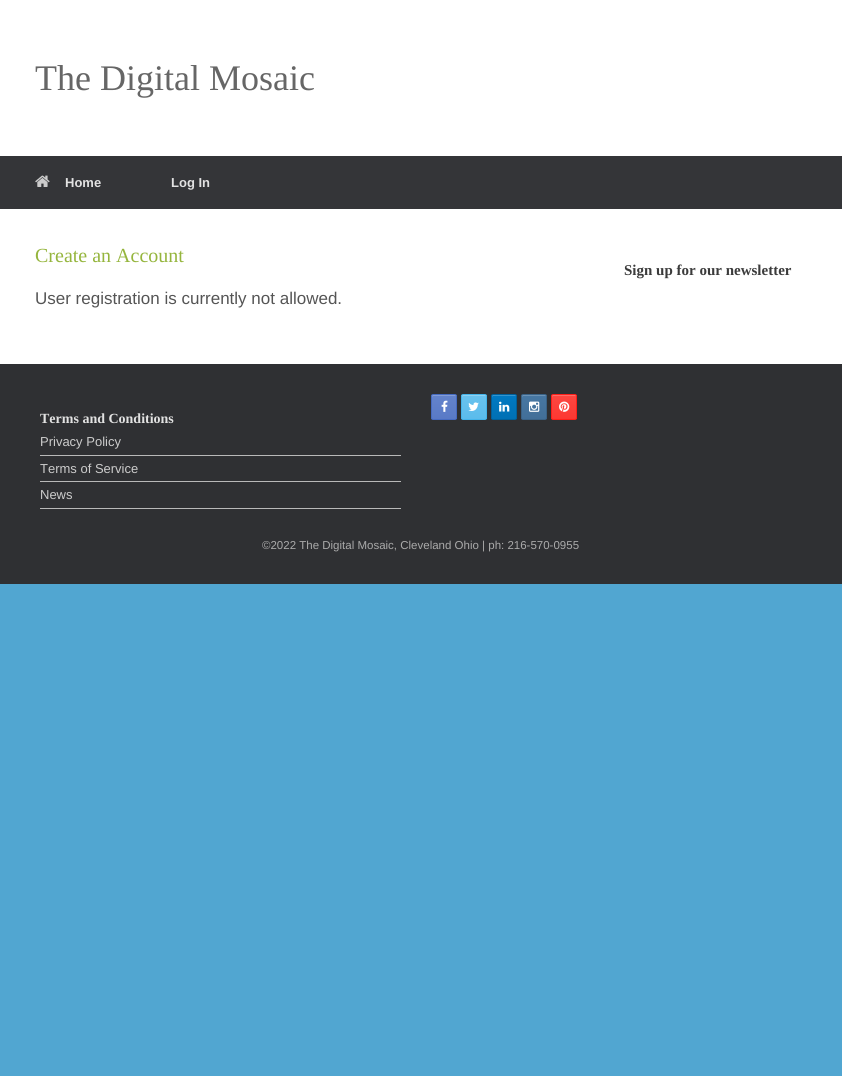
#include <cairo/cairo.h>
#include <math.h>
#include <stddef.h>

static cairo_t *cr;

static void use_color(int r, int g, int b) {
  cairo_set_source_rgb(cr, r / 255.0, g / 255.0, b / 255.0);
}

static void text(double x, double y, const char *s, const char *family, double size, int italic, int bold, int r, int g, int b) {
  cairo_select_font_face(cr, family, italic ? CAIRO_FONT_SLANT_ITALIC : CAIRO_FONT_SLANT_NORMAL,
    bold ? CAIRO_FONT_WEIGHT_BOLD : CAIRO_FONT_WEIGHT_NORMAL);
  cairo_set_font_size(cr, size);
  use_color(r, g, b);
  cairo_move_to(cr, x, y);
  cairo_show_text(cr, s);
}

static void box(double x, double y, double w, double h, int r, int g, int b) {
  use_color(r, g, b);
  cairo_rectangle(cr, x, y, w, h);
  cairo_fill(cr);
}

static void round_rect(double x, double y, double w, double h, double r) {
  cairo_new_sub_path(cr);
  cairo_arc(cr, x + w - r, y + h - r, r, 0, M_PI / 2);
  cairo_arc(cr, x + r, y + h - r, r, M_PI / 2, M_PI);
  cairo_arc(cr, x + r, y + r, r, M_PI, 1.5 * M_PI);
  cairo_arc(cr, x + w - r, y + r, r, 1.5 * M_PI, 2 * M_PI);
  cairo_close_path(cr);
}

static void picture(const char *path, double x, double y, double w, double h) {
  cairo_surface_t *image = cairo_image_surface_create_from_png(path);
  cairo_save(cr);
  cairo_set_source_surface(cr, image, x, y);
  cairo_rectangle(cr, x, y, w, h);
  cairo_fill(cr);
  cairo_restore(cr);
  cairo_surface_destroy(image);
}

static void draw(void) {
  cairo_pattern_t *gradient;
  use_color(81, 166, 209);
  cairo_paint(cr);
  box(0, 0, 842, 156, 255, 255, 255);
  box(0, 156, 842, 53, 52, 53, 56);
  picture("img_01.png", 35, 175, 15, 12);
  box(0, 209, 842, 155, 255, 255, 255);
  box(0, 364, 842, 220, 47, 48, 51);
  cairo_save(cr);
  round_rect(431, 394, 26, 26, 2);
  cairo_clip(cr);
  gradient = cairo_pattern_create_linear(432, 419, 432, 395);
  cairo_pattern_add_color_stop_rgba(gradient, 0, 0.349, 0.478, 0.78, 1);
  cairo_pattern_add_color_stop_rgba(gradient, 1, 0.392, 0.514, 0.796, 1);
  cairo_set_source(cr, gradient);
  cairo_pattern_destroy(gradient);
  cairo_rectangle(cr, 431, 395, 26, 24);
  cairo_fill(cr);
  cairo_restore(cr);
  use_color(131, 156, 213);
  cairo_new_path(cr);
  cairo_move_to(cr, 433, 396);
  cairo_line_to(cr, 456, 396);
  cairo_curve_to(cr, 456, 395.5, 455.5, 395, 455, 395);
  cairo_line_to(cr, 433, 395);
  cairo_curve_to(cr, 432.5, 395, 432, 395.5, 432, 396);
  cairo_line_to(cr, 432, 398);
  cairo_curve_to(cr, 432, 397, 432.5, 396, 433, 396);
  cairo_close_path(cr);
  cairo_fill(cr);
  round_rect(431.5, 394.5, 25, 25, 1.5);
  use_color(70, 107, 193);
  cairo_set_line_width(cr, 1);
  cairo_stroke(cr);
  picture("img_02.png", 441, 400, 7, 12);
  cairo_save(cr);
  round_rect(461, 394, 26, 26, 2);
  cairo_clip(cr);
  gradient = cairo_pattern_create_linear(462, 419, 462, 395);
  cairo_pattern_add_color_stop_rgba(gradient, 0, 0.357, 0.737, 0.925, 1);
  cairo_pattern_add_color_stop_rgba(gradient, 1, 0.412, 0.761, 0.933, 1);
  cairo_set_source(cr, gradient);
  cairo_pattern_destroy(gradient);
  cairo_rectangle(cr, 461, 395, 26, 24);
  cairo_fill(cr);
  cairo_restore(cr);
  use_color(143, 209, 242);
  cairo_new_path(cr);
  cairo_move_to(cr, 463, 396);
  cairo_line_to(cr, 486, 396);
  cairo_curve_to(cr, 486, 395.5, 485.5, 395, 485, 395);
  cairo_line_to(cr, 463, 395);
  cairo_curve_to(cr, 462.5, 395, 462, 395.5, 462, 396);
  cairo_line_to(cr, 462, 398);
  cairo_curve_to(cr, 462, 397, 462.5, 396, 463, 396);
  cairo_close_path(cr);
  cairo_fill(cr);
  round_rect(461.5, 394.5, 25, 25, 1.5);
  use_color(68, 179, 233);
  cairo_stroke(cr);
  picture("img_03.png", 468, 402, 11, 9);
  cairo_save(cr);
  round_rect(491, 394, 26, 26, 2);
  cairo_clip(cr);
  gradient = cairo_pattern_create_linear(492, 419, 492, 395);
  cairo_pattern_add_color_stop_rgba(gradient, 0, 0, 0.439, 0.706, 1);
  cairo_pattern_add_color_stop_rgba(gradient, 1, 0, 0.478, 0.765, 1);
  cairo_set_source(cr, gradient);
  cairo_pattern_destroy(gradient);
  cairo_rectangle(cr, 491, 395, 26, 24);
  cairo_fill(cr);
  cairo_restore(cr);
  use_color(51, 149, 207);
  cairo_new_path(cr);
  cairo_move_to(cr, 493, 396);
  cairo_line_to(cr, 516, 396);
  cairo_curve_to(cr, 516, 395.5, 515.5, 395, 515, 395);
  cairo_line_to(cr, 493, 395);
  cairo_curve_to(cr, 492.5, 395, 492, 395.5, 492, 396);
  cairo_line_to(cr, 492, 398);
  cairo_curve_to(cr, 492, 397, 492.5, 396, 493, 396);
  cairo_close_path(cr);
  cairo_fill(cr);
  round_rect(491.5, 394.5, 25, 25, 1.5);
  use_color(0, 96, 155);
  cairo_stroke(cr);
  picture("img_04.png", 499, 401, 11, 11);
  cairo_save(cr);
  round_rect(521, 394, 26, 26, 2);
  cairo_clip(cr);
  gradient = cairo_pattern_create_linear(522, 419, 522, 395);
  cairo_pattern_add_color_stop_rgba(gradient, 0, 0.259, 0.435, 0.596, 1);
  cairo_pattern_add_color_stop_rgba(gradient, 1, 0.278, 0.467, 0.639, 1);
  cairo_set_source(cr, gradient);
  cairo_pattern_destroy(gradient);
  cairo_rectangle(cr, 521, 395, 26, 24);
  cairo_fill(cr);
  cairo_restore(cr);
  use_color(108, 146, 181);
  cairo_new_path(cr);
  cairo_move_to(cr, 523, 396);
  cairo_line_to(cr, 546, 396);
  cairo_curve_to(cr, 546, 395.5, 545.5, 395, 545, 395);
  cairo_line_to(cr, 523, 395);
  cairo_curve_to(cr, 522.5, 395, 522, 395.5, 522, 396);
  cairo_line_to(cr, 522, 398);
  cairo_curve_to(cr, 522, 397, 522.5, 396, 523, 396);
  cairo_close_path(cr);
  cairo_fill(cr);
  round_rect(521.5, 394.5, 25, 25, 1.5);
  use_color(58, 98, 134);
  cairo_stroke(cr);
  picture("img_05.png", 529, 401, 11, 11);
  cairo_save(cr);
  round_rect(551, 394, 26, 26, 2);
  cairo_clip(cr);
  gradient = cairo_pattern_create_linear(552, 419, 552, 395);
  cairo_pattern_add_color_stop_rgba(gradient, 0, 0.992, 0.22, 0.196, 1);
  cairo_pattern_add_color_stop_rgba(gradient, 1, 0.992, 0.278, 0.255, 1);
  cairo_set_source(cr, gradient);
  cairo_pattern_destroy(gradient);
  cairo_rectangle(cr, 551, 395, 26, 24);
  cairo_fill(cr);
  cairo_restore(cr);
  use_color(253, 108, 103);
  cairo_new_path(cr);
  cairo_move_to(cr, 553, 396);
  cairo_line_to(cr, 576, 396);
  cairo_curve_to(cr, 576, 395.5, 575.5, 395, 575, 395);
  cairo_line_to(cr, 553, 395);
  cairo_curve_to(cr, 552.5, 395, 552, 395.5, 552, 396);
  cairo_line_to(cr, 552, 398);
  cairo_curve_to(cr, 552, 397, 552.5, 396, 553, 396);
  cairo_close_path(cr);
  cairo_fill(cr);
  round_rect(551.5, 394.5, 25, 25, 1.5);
  use_color(253, 31, 25);
  cairo_stroke(cr);
  picture("img_06.png", 559, 401, 11, 11);
  box(40, 455, 361, 1, 185, 185, 185);
  box(40, 481, 361, 1, 185, 185, 185);
  box(40, 508, 361, 1, 185, 185, 185);
  text(35, 90, "The Digital Mosaic", "Liberation Serif", 36, 0, 0, 102, 102, 102);
  text(65, 187, "Home", "Liberation Sans", 13, 0, 1, 226, 226, 226);
  text(171, 187, "Log In", "Liberation Sans", 13, 0, 1, 226, 226, 226);
  text(35, 262, "Create an Account", "Liberation Serif", 20, 0, 0, 149, 181, 61);
  text(35, 304, "User registration is currently not allowed.", "Liberation Sans", 17, 0, 0, 85, 85, 85);
  text(624, 275, "Sign up for our newsletter", "Liberation Serif", 15, 0, 1, 59, 59, 59);
  text(40, 423, "Terms and Conditions", "Liberation Serif", 14, 0, 1, 226, 226, 226);
  text(40, 446, "Privacy Policy", "Liberation Sans", 13, 0, 0, 204, 204, 204);
  text(40, 473, "Terms of Service", "Liberation Sans", 13, 0, 0, 204, 204, 204);
  text(40, 499, "News", "Liberation Sans", 13, 0, 0, 204, 204, 204);
  text(262, 549, "©2022 The Digital Mosaic, Cleveland Ohio | ph: 216-570-0955", "Liberation Sans", 11.5, 0, 0, 170, 170, 170);
}

int main(void) {
  cairo_surface_t *surface = cairo_image_surface_create(CAIRO_FORMAT_RGB24, 842, 1076);
  cr = cairo_create(surface);
  cairo_font_options_t *options = cairo_font_options_create();
  cairo_font_options_set_hint_metrics(options, CAIRO_HINT_METRICS_OFF);
  cairo_font_options_set_hint_style(options, CAIRO_HINT_STYLE_NONE);
  cairo_set_font_options(cr, options);
  cairo_set_miter_limit(cr, 4);
  draw();
  cairo_surface_write_to_png(surface, "out.png");
  cairo_font_options_destroy(options);
  cairo_destroy(cr);
  cairo_surface_destroy(surface);
  return 0;
}
